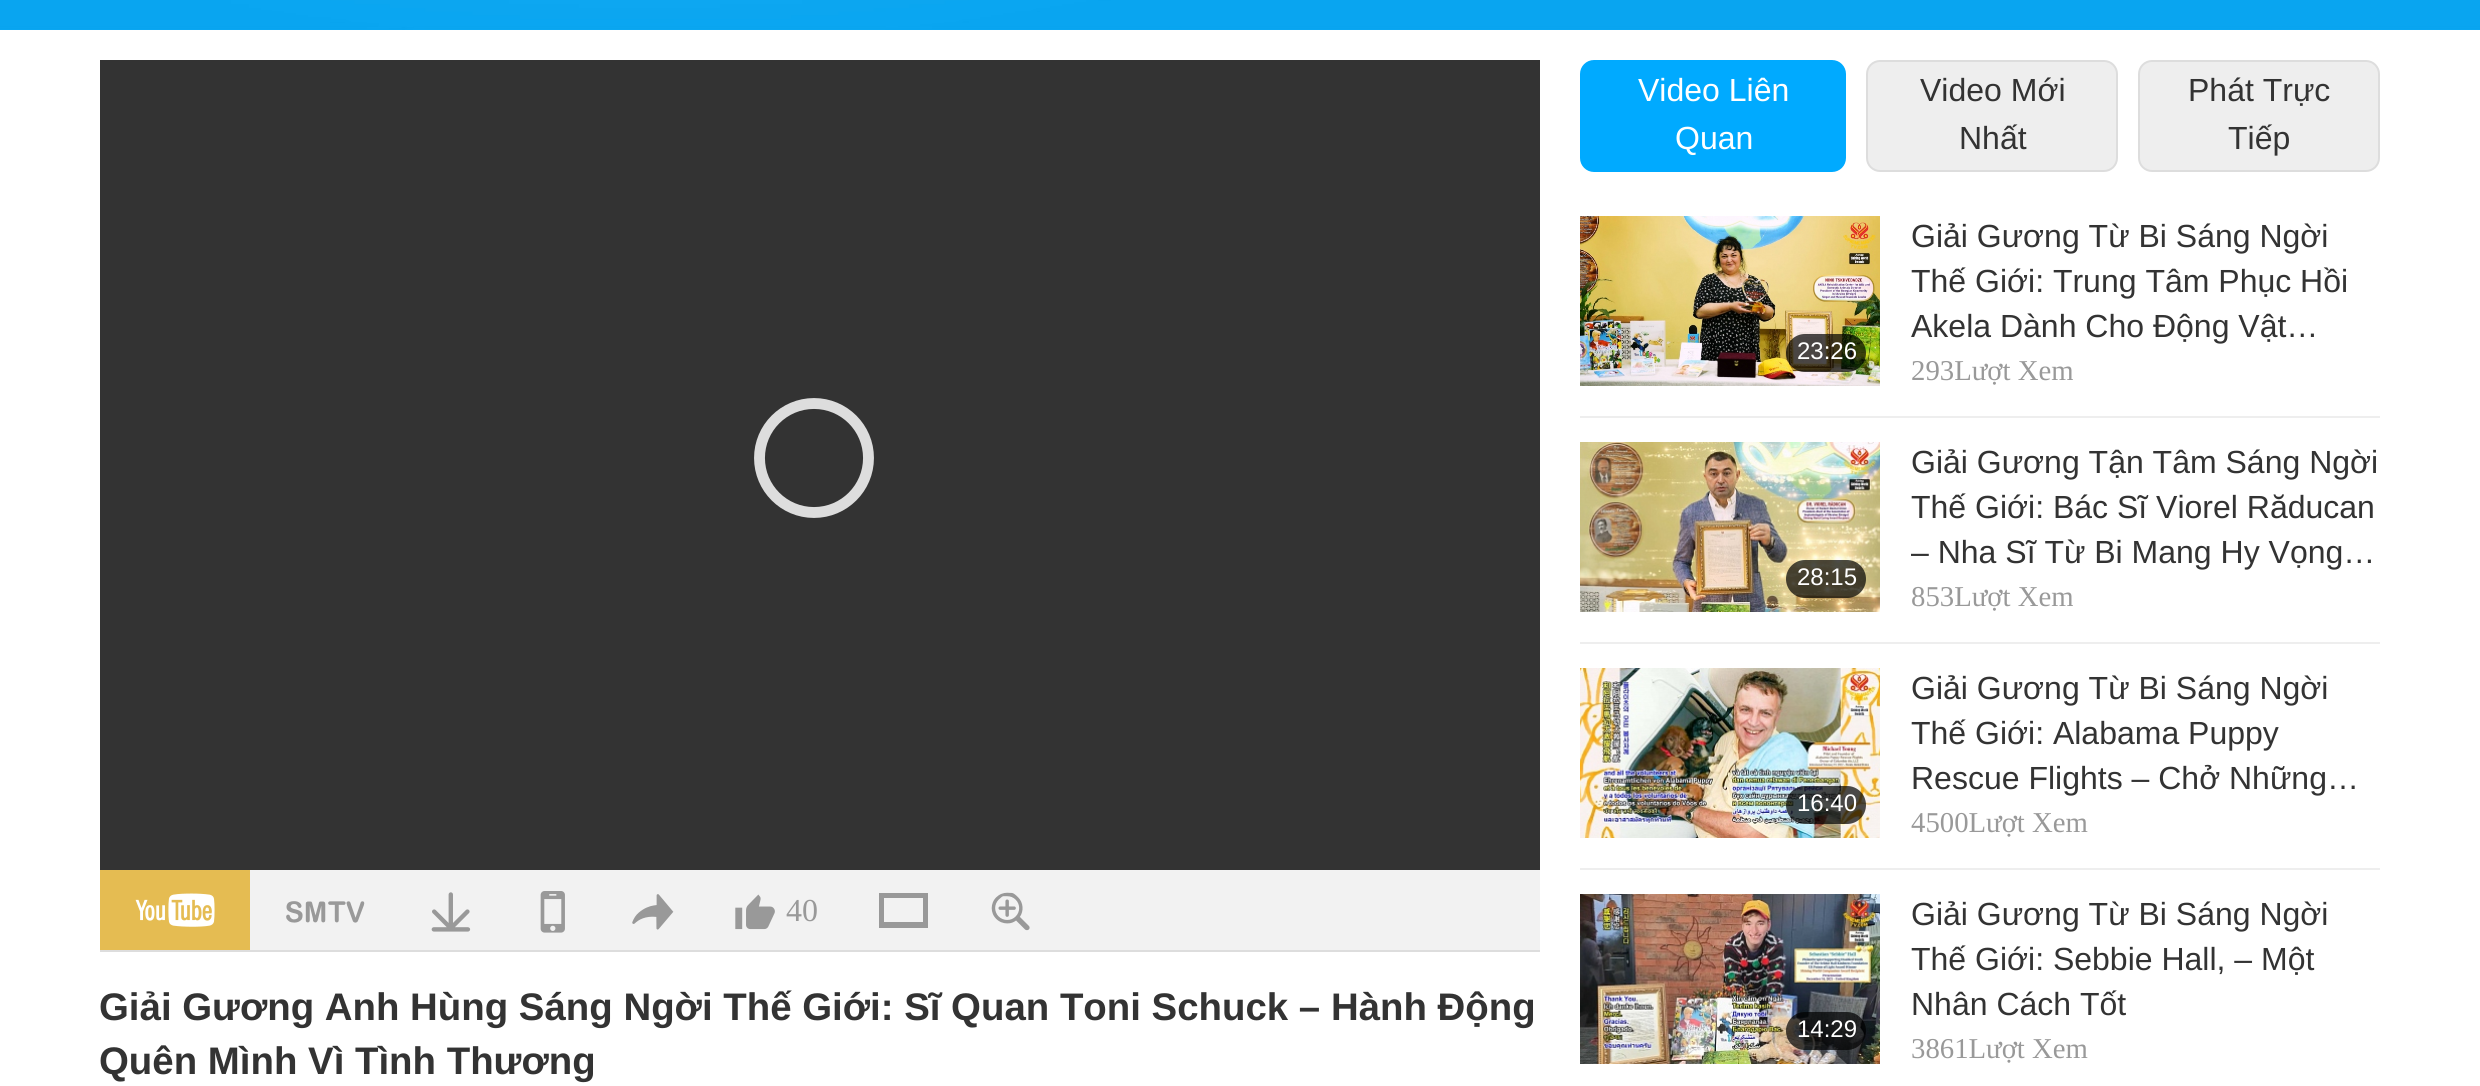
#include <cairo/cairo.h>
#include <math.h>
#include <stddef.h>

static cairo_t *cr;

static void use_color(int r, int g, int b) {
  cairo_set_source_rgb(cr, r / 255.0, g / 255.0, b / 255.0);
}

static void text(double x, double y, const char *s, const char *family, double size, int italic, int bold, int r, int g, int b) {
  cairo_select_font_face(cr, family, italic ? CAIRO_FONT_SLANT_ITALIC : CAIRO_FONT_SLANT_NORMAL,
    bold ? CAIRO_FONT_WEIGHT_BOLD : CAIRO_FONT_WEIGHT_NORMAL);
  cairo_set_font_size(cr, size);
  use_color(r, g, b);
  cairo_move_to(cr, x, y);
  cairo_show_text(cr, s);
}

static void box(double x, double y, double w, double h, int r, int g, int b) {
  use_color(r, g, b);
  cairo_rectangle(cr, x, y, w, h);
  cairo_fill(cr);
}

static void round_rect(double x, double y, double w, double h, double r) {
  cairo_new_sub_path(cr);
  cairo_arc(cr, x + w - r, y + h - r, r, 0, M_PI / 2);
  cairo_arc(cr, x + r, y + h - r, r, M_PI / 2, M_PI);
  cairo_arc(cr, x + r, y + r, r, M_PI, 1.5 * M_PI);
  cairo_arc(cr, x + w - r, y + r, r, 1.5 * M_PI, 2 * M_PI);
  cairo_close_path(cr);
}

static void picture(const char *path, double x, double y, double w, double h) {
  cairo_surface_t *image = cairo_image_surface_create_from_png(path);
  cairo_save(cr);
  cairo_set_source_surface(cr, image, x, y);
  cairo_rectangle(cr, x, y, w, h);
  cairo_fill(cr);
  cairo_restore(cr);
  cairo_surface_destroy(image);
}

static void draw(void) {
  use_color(255, 255, 255);
  cairo_paint(cr);
  picture("img_01.png", 0, 0, 2480, 30);
  box(100, 60, 1440, 810, 51, 51, 51);
  cairo_arc(cr, 814, 458, 54.5, 0, 2 * M_PI);
  use_color(221, 221, 221);
  cairo_set_line_width(cr, 10.9);
  cairo_stroke(cr);
  box(250, 870, 1290, 80, 242, 242, 242);
  box(100, 950, 1440, 2, 221, 221, 221);
  box(100, 870, 150, 80, 229, 188, 82);
  picture("img_02.png", 135, 893, 80, 34);
  picture("img_03.png", 286, 901, 79, 22);
  picture("img_04.png", 431, 892, 40, 40);
  picture("img_05.png", 540, 891, 25, 42);
  picture("img_06.png", 632, 894, 42, 36);
  picture("img_07.png", 735, 894, 40, 36);
  use_color(153, 153, 153);
  cairo_new_path(cr);
  cairo_move_to(cr, 928, 928);
  cairo_line_to(cr, 879, 928);
  cairo_line_to(cr, 879, 893);
  cairo_line_to(cr, 928, 893);
  cairo_close_path(cr);
  cairo_move_to(cr, 884, 922);
  cairo_line_to(cr, 923, 922);
  cairo_line_to(cr, 923, 898);
  cairo_line_to(cr, 884, 898);
  cairo_close_path(cr);
  cairo_fill(cr);
  picture("img_08.png", 991, 892, 39, 39);
  use_color(0, 170, 255);
  round_rect(1581, 61, 264, 110, 13);
  cairo_fill_preserve(cr);
  cairo_set_line_width(cr, 2);
  cairo_stroke(cr);
  use_color(238, 238, 238);
  round_rect(1867, 61, 250, 110, 13);
  cairo_fill_preserve(cr);
  use_color(221, 221, 221);
  cairo_stroke(cr);
  use_color(238, 238, 238);
  round_rect(2139, 61, 240, 110, 13);
  cairo_fill_preserve(cr);
  use_color(221, 221, 221);
  cairo_stroke(cr);
  box(1580, 416, 800, 2, 238, 238, 238);
  picture("img_09.png", 1580, 216, 300, 170);
  cairo_set_source_rgba(cr, 0, 0, 0, 0.7);
  round_rect(1786, 334, 80, 38, 19);
  cairo_fill(cr);
  box(1580, 642, 800, 2, 238, 238, 238);
  picture("img_10.png", 1580, 442, 300, 170);
  cairo_set_source_rgba(cr, 0, 0, 0, 0.7);
  round_rect(1786, 560, 80, 38, 19);
  cairo_fill(cr);
  box(1580, 868, 800, 2, 238, 238, 238);
  picture("img_11.png", 1580, 668, 300, 170);
  cairo_set_source_rgba(cr, 0, 0, 0, 0.7);
  round_rect(1786, 786, 80, 38, 19);
  cairo_fill(cr);
  picture("img_12.png", 1580, 894, 300, 170);
  round_rect(1786, 1012, 80, 38, 19);
  cairo_fill(cr);
  text(786, 921, "40", "Liberation Serif", 32, 0, 0, 153, 153, 153);
  text(99, 1020, "Giải Gương Anh Hùng Sáng Ngời Thế Giới: Sĩ Quan Toni Schuck – Hành Động", "Liberation Sans", 38.4, 0, 1, 51, 51, 51);
  text(99, 1074, "Quên Mình Vì Tình Thương", "Liberation Sans", 38.4, 0, 1, 51, 51, 51);
  text(1638, 101, "Video Liên", "Liberation Sans", 32, 0, 0, 255, 255, 255);
  text(1675, 149, "Quan", "Liberation Sans", 32, 0, 0, 255, 255, 255);
  text(1920, 101, "Video Mới", "Liberation Sans", 32, 0, 0, 51, 51, 51);
  text(1959, 149, "Nhất", "Liberation Sans", 32, 0, 0, 51, 51, 51);
  text(2188, 101, "Phát Trực", "Liberation Sans", 32, 0, 0, 51, 51, 51);
  text(2228, 149, "Tiếp", "Liberation Sans", 32, 0, 0, 51, 51, 51);
  text(1797, 359, "23:26", "Liberation Sans", 24, 0, 0, 255, 255, 255);
  text(1911, 247, "Giải Gương Từ Bi Sáng Ngời", "Liberation Sans", 32, 0, 0, 51, 51, 51);
  text(1911, 292, "Thế Giới: Trung Tâm Phục Hồi", "Liberation Sans", 32, 0, 0, 51, 51, 51);
  text(1911, 337, "Akela Dành Cho Động Vật…", "Liberation Sans", 32, 0, 0, 51, 51, 51);
  text(1911, 380, "293Lượt Xem", "Liberation Serif", 28.75, 0, 0, 153, 153, 153);
  text(1797, 585, "28:15", "Liberation Sans", 24, 0, 0, 255, 255, 255);
  text(1911, 473, "Giải Gương Tận Tâm Sáng Ngời", "Liberation Sans", 32, 0, 0, 51, 51, 51);
  text(1911, 518, "Thế Giới: Bác Sĩ Viorel Răducan", "Liberation Sans", 32, 0, 0, 51, 51, 51);
  text(1911, 563, "– Nha Sĩ Từ Bi Mang Hy Vọng…", "Liberation Sans", 32, 0, 0, 51, 51, 51);
  text(1911, 606, "853Lượt Xem", "Liberation Serif", 28.75, 0, 0, 153, 153, 153);
  text(1797, 811, "16:40", "Liberation Sans", 24, 0, 0, 255, 255, 255);
  text(1911, 699, "Giải Gương Từ Bi Sáng Ngời", "Liberation Sans", 32, 0, 0, 51, 51, 51);
  text(1911, 744, "Thế Giới: Alabama Puppy", "Liberation Sans", 32, 0, 0, 51, 51, 51);
  text(1911, 789, "Rescue Flights – Chở Những…", "Liberation Sans", 32, 0, 0, 51, 51, 51);
  text(1911, 832, "4500Lượt Xem", "Liberation Serif", 28.75, 0, 0, 153, 153, 153);
  text(1797, 1037, "14:29", "Liberation Sans", 24, 0, 0, 255, 255, 255);
  text(1911, 925, "Giải Gương Từ Bi Sáng Ngời", "Liberation Sans", 32, 0, 0, 51, 51, 51);
  text(1911, 970, "Thế Giới: Sebbie Hall, – Một", "Liberation Sans", 32, 0, 0, 51, 51, 51);
  text(1911, 1015, "Nhân Cách Tốt", "Liberation Sans", 32, 0, 0, 51, 51, 51);
  text(1911, 1058, "3861Lượt Xem", "Liberation Serif", 28.75, 0, 0, 153, 153, 153);
}

int main(void) {
  cairo_surface_t *surface = cairo_image_surface_create(CAIRO_FORMAT_RGB24, 2480, 1086);
  cr = cairo_create(surface);
  cairo_font_options_t *options = cairo_font_options_create();
  cairo_font_options_set_hint_metrics(options, CAIRO_HINT_METRICS_OFF);
  cairo_font_options_set_hint_style(options, CAIRO_HINT_STYLE_NONE);
  cairo_set_font_options(cr, options);
  cairo_set_miter_limit(cr, 4);
  draw();
  cairo_surface_write_to_png(surface, "out.png");
  cairo_font_options_destroy(options);
  cairo_destroy(cr);
  cairo_surface_destroy(surface);
  return 0;
}
